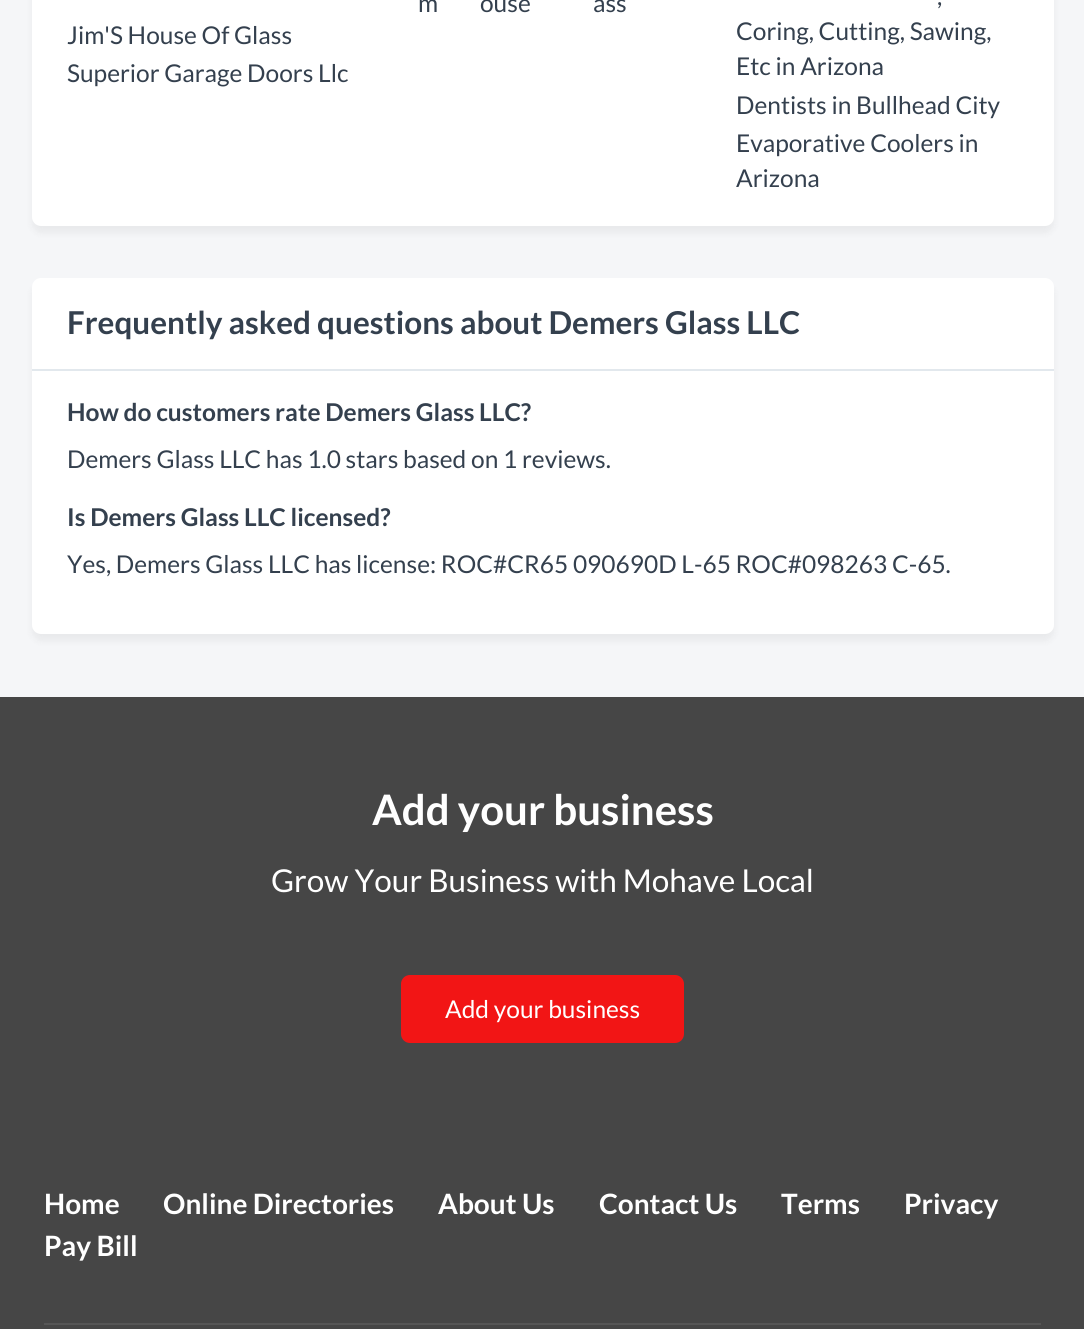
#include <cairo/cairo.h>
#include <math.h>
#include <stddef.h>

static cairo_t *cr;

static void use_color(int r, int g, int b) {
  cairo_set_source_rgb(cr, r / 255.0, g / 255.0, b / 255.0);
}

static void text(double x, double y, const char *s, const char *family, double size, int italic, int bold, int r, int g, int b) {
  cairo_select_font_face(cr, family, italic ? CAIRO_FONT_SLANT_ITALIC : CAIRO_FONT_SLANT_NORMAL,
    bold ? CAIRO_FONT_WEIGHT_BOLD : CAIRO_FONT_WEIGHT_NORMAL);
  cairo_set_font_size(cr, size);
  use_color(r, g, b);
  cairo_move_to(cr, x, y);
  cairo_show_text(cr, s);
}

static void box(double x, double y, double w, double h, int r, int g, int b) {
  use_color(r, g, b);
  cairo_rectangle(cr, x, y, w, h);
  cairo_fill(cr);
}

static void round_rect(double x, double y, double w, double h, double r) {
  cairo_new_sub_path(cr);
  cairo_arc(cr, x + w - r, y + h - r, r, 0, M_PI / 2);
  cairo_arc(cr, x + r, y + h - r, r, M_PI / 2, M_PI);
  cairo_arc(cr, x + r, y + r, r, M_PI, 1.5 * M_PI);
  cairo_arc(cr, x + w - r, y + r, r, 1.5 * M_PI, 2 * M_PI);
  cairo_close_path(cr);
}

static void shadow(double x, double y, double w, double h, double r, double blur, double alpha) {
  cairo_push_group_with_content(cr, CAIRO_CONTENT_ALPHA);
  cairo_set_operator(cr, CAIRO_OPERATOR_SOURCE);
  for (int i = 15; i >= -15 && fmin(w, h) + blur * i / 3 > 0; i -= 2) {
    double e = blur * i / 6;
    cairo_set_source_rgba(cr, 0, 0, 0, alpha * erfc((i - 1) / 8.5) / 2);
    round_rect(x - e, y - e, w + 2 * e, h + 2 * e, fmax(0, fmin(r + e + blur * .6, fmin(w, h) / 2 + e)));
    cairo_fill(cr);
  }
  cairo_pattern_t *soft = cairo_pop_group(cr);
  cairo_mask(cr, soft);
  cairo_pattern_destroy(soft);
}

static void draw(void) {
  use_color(245, 246, 248);
  cairo_paint(cr);
  use_color(0, 0, 0);
  shadow(32, -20, 1022, 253, 9, 3.5, 0.05);
  use_color(255, 255, 255);
  round_rect(32, -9, 1022, 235, 9);
  cairo_fill(cr);
  use_color(0, 0, 0);
  shadow(32, 285, 1022, 356, 9, 3.5, 0.05);
  use_color(255, 255, 255);
  round_rect(32, 278, 1022, 356, 9);
  cairo_fill(cr);
  box(32, 369, 1022, 2, 226, 232, 237);
  box(0, 697, 1084, 632, 70, 70, 70);
  use_color(242, 21, 21);
  round_rect(402, 976, 281, 66, 8);
  cairo_fill_preserve(cr);
  cairo_stroke(cr);
  box(44, 1323, 997, 2, 86, 86, 86);
  text(67, 44, "Jim'S House Of Glass", "Lato", 24.5, 0, 0, 52, 64, 78);
  text(67, 82, "Superior Garage Doors Llc", "Lato", 24.5, 0, 0, 52, 64, 78);
  text(418, 12, "m", "Lato", 24.5, 0, 0, 52, 64, 78);
  text(480, 12, "ouse", "Lato", 24.5, 0, 0, 52, 64, 78);
  text(593, 12, "ass", "Lato", 24.5, 0, 0, 52, 64, 78);
  text(937, 5, ",", "Lato", 24.5, 0, 0, 52, 64, 78);
  text(736, 40, "Coring, Cutting, Sawing,", "Lato", 24.5, 0, 0, 52, 64, 78);
  text(736, 75, "Etc in Arizona", "Lato", 24.5, 0, 0, 52, 64, 78);
  text(736, 114, "Dentists in Bullhead City", "Lato", 24.5, 0, 0, 52, 64, 78);
  text(736, 152, "Evaporative Coolers in", "Lato", 24.5, 0, 0, 52, 64, 78);
  text(736, 187, "Arizona", "Lato", 24.5, 0, 0, 52, 64, 78);
  text(67, 334, "Frequently asked questions about Demers Glass LLC", "Lato", 31.5, 0, 1, 52, 64, 78);
  text(67, 421, "How do customers rate Demers Glass LLC?", "Lato", 24.5, 0, 1, 52, 64, 78);
  text(67, 468, "Demers Glass LLC has 1.0 stars based on 1 reviews.", "Lato", 24.5, 0, 0, 52, 64, 78);
  text(67, 526, "Is Demers Glass LLC licensed?", "Lato", 24.5, 0, 1, 52, 64, 78);
  text(67, 573, "Yes, Demers Glass LLC has license: ROC#CR65 090690D L-65 ROC#098263 C-65.", "Lato", 24.5, 0, 0, 52, 64, 78);
  text(372, 825, "Add your business", "Lato", 42, 0, 1, 255, 255, 255);
  text(271, 892, "Grow Your Business with Mohave Local", "Lato", 31.5, 0, 0, 255, 255, 255);
  text(445, 1018, "Add your business", "Lato", 24.5, 0, 0, 255, 255, 255);
  text(44, 1214, "Home", "Lato", 28, 0, 1, 255, 255, 255);
  text(163, 1214, "Online Directories", "Lato", 28, 0, 1, 255, 255, 255);
  text(438, 1214, "About Us", "Lato", 28, 0, 1, 255, 255, 255);
  text(599, 1214, "Contact Us", "Lato", 28, 0, 1, 255, 255, 255);
  text(781, 1214, "Terms", "Lato", 28, 0, 1, 255, 255, 255);
  text(904, 1214, "Privacy", "Lato", 28, 0, 1, 255, 255, 255);
  text(44, 1256, "Pay Bill", "Lato", 28, 0, 1, 255, 255, 255);
}

int main(void) {
  cairo_surface_t *surface = cairo_image_surface_create(CAIRO_FORMAT_RGB24, 1084, 1329);
  cr = cairo_create(surface);
  cairo_font_options_t *options = cairo_font_options_create();
  cairo_font_options_set_hint_metrics(options, CAIRO_HINT_METRICS_OFF);
  cairo_font_options_set_hint_style(options, CAIRO_HINT_STYLE_NONE);
  cairo_set_font_options(cr, options);
  cairo_set_miter_limit(cr, 4);
  draw();
  cairo_surface_write_to_png(surface, "out.png");
  cairo_font_options_destroy(options);
  cairo_destroy(cr);
  cairo_surface_destroy(surface);
  return 0;
}
